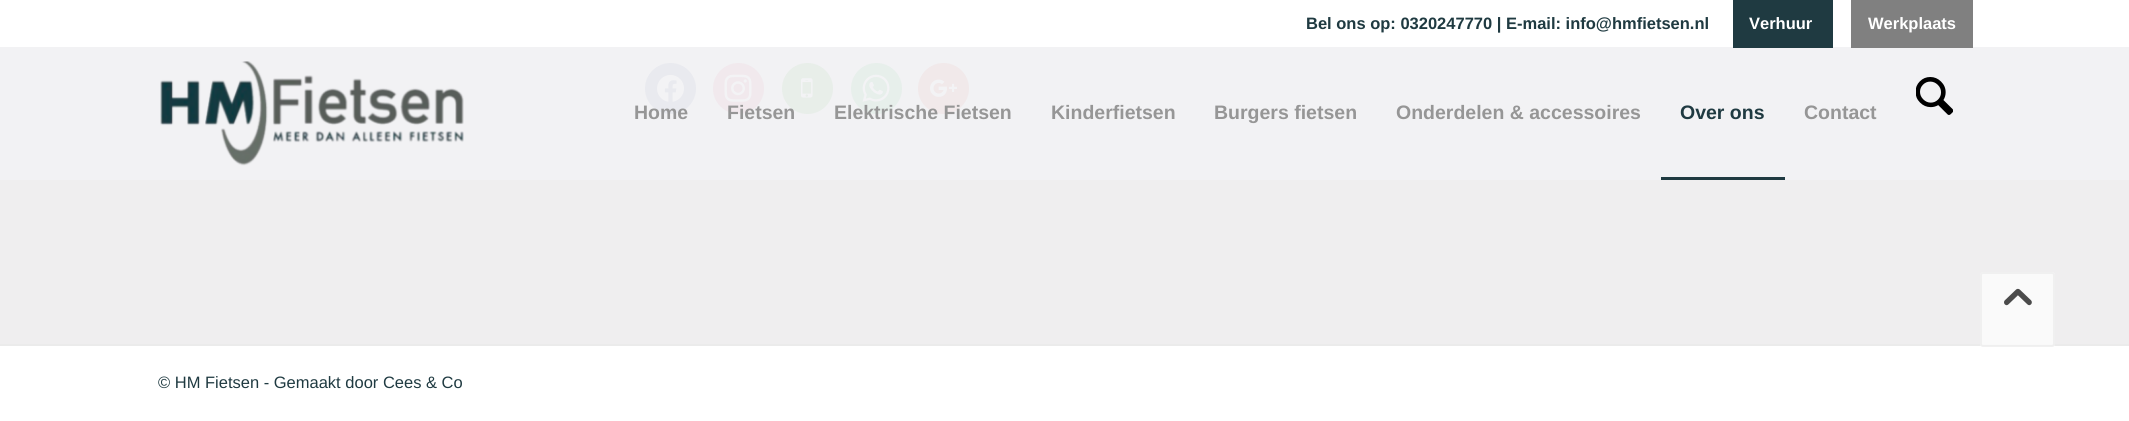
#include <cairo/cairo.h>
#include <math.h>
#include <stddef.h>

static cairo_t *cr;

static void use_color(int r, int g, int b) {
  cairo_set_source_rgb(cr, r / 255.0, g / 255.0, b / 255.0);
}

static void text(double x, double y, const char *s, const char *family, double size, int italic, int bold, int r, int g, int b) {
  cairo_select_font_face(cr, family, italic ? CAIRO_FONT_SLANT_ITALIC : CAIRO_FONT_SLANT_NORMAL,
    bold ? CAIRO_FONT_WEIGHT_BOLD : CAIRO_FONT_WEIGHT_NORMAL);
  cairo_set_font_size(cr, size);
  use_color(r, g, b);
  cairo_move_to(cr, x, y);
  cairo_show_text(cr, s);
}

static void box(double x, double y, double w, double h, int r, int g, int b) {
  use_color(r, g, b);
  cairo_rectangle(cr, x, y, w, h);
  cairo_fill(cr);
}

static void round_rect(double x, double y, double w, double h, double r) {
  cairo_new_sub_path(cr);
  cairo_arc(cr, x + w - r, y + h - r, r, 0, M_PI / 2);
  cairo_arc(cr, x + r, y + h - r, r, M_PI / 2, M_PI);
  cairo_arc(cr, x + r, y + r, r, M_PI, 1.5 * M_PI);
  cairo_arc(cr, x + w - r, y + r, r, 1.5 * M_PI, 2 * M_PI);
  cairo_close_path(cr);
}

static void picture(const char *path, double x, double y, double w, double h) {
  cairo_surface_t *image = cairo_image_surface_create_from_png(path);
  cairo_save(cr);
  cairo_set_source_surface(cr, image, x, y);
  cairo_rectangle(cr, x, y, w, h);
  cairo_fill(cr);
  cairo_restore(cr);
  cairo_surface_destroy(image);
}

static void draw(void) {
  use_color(239, 238, 239);
  cairo_paint(cr);
  box(0, 0, 2129, 47, 255, 255, 255);
  box(0, 47, 2129, 133, 242, 242, 244);
  box(1733, 0, 100, 48, 31, 58, 65);
  box(1851, 0, 122, 48, 128, 128, 128);
  picture("img_01.png", 160, 61, 304, 105);
  box(1661, 177, 124, 3, 31, 58, 65);
  picture("img_02.png", 1916, 77, 37, 38);
  use_color(233, 234, 239);
  cairo_arc(cr, 670.5, 88.5, 25.5, 0, 2 * M_PI);
  cairo_fill(cr);
  picture("img_03.png", 657, 74, 27, 28);
  use_color(241, 233, 237);
  cairo_arc(cr, 738.5, 88.5, 25.5, 0, 2 * M_PI);
  cairo_fill(cr);
  picture("img_04.png", 724, 74, 28, 28);
  use_color(232, 238, 233);
  cairo_arc(cr, 807.5, 88.5, 25.5, 0, 2 * M_PI);
  cairo_fill(cr);
  picture("img_05.png", 801, 78, 12, 20);
  use_color(231, 239, 235);
  cairo_arc(cr, 876.5, 88.5, 25.5, 0, 2 * M_PI);
  cairo_fill(cr);
  picture("img_06.png", 862, 74, 28, 28);
  use_color(241, 233, 234);
  cairo_arc(cr, 943.5, 88.5, 25.5, 0, 2 * M_PI);
  cairo_fill(cr);
  picture("img_07.png", 930, 79, 28, 18);
  box(0, 346, 2129, 75, 255, 255, 255);
  box(0, 344, 2129, 2, 235, 235, 235);
  cairo_set_source_rgba(cr, 1, 1, 1, 0.7);
  round_rect(1980, 272, 75, 75, 3);
  cairo_fill(cr);
  round_rect(1981, 273, 73, 73, 2);
  cairo_set_source_rgba(cr, 0.922, 0.922, 0.922, 0.7);
  cairo_stroke(cr);
  picture("img_08.png", 2004, 288, 28, 18);
  text(1306, 29, "Bel ons op: 0320247770 | E-mail: info@hmfietsen.nl", "Liberation Sans", 16.5, 0, 1, 31, 58, 65);
  text(1749, 29, "Verhuur", "Liberation Sans", 16.5, 0, 1, 255, 255, 255);
  text(1868, 29, "Werkplaats", "Liberation Sans", 16.5, 0, 1, 255, 255, 255);
  text(634, 119, "Home", "Liberation Sans", 19.5, 0, 1, 150, 150, 150);
  text(727, 119, "Fietsen", "Liberation Sans", 19.5, 0, 1, 150, 150, 150);
  text(834, 119, "Elektrische Fietsen", "Liberation Sans", 19.5, 0, 1, 150, 150, 150);
  text(1051, 119, "Kinderfietsen", "Liberation Sans", 19.5, 0, 1, 150, 150, 150);
  text(1214, 119, "Burgers fietsen", "Liberation Sans", 19.5, 0, 1, 150, 150, 150);
  text(1396, 119, "Onderdelen & accessoires", "Liberation Sans", 19.5, 0, 1, 150, 150, 150);
  text(1680, 119, "Over ons", "Liberation Sans", 19.5, 0, 1, 31, 58, 65);
  text(1804, 119, "Contact", "Liberation Sans", 19.5, 0, 1, 150, 150, 150);
  text(158, 388, "© HM Fietsen - Gemaakt door Cees & Co", "Liberation Sans", 16.5, 0, 0, 31, 58, 65);
}

int main(void) {
  cairo_surface_t *surface = cairo_image_surface_create(CAIRO_FORMAT_RGB24, 2129, 421);
  cr = cairo_create(surface);
  cairo_font_options_t *options = cairo_font_options_create();
  cairo_font_options_set_hint_metrics(options, CAIRO_HINT_METRICS_OFF);
  cairo_font_options_set_hint_style(options, CAIRO_HINT_STYLE_NONE);
  cairo_set_font_options(cr, options);
  cairo_set_miter_limit(cr, 4);
  draw();
  cairo_surface_write_to_png(surface, "out.png");
  cairo_font_options_destroy(options);
  cairo_destroy(cr);
  cairo_surface_destroy(surface);
  return 0;
}
